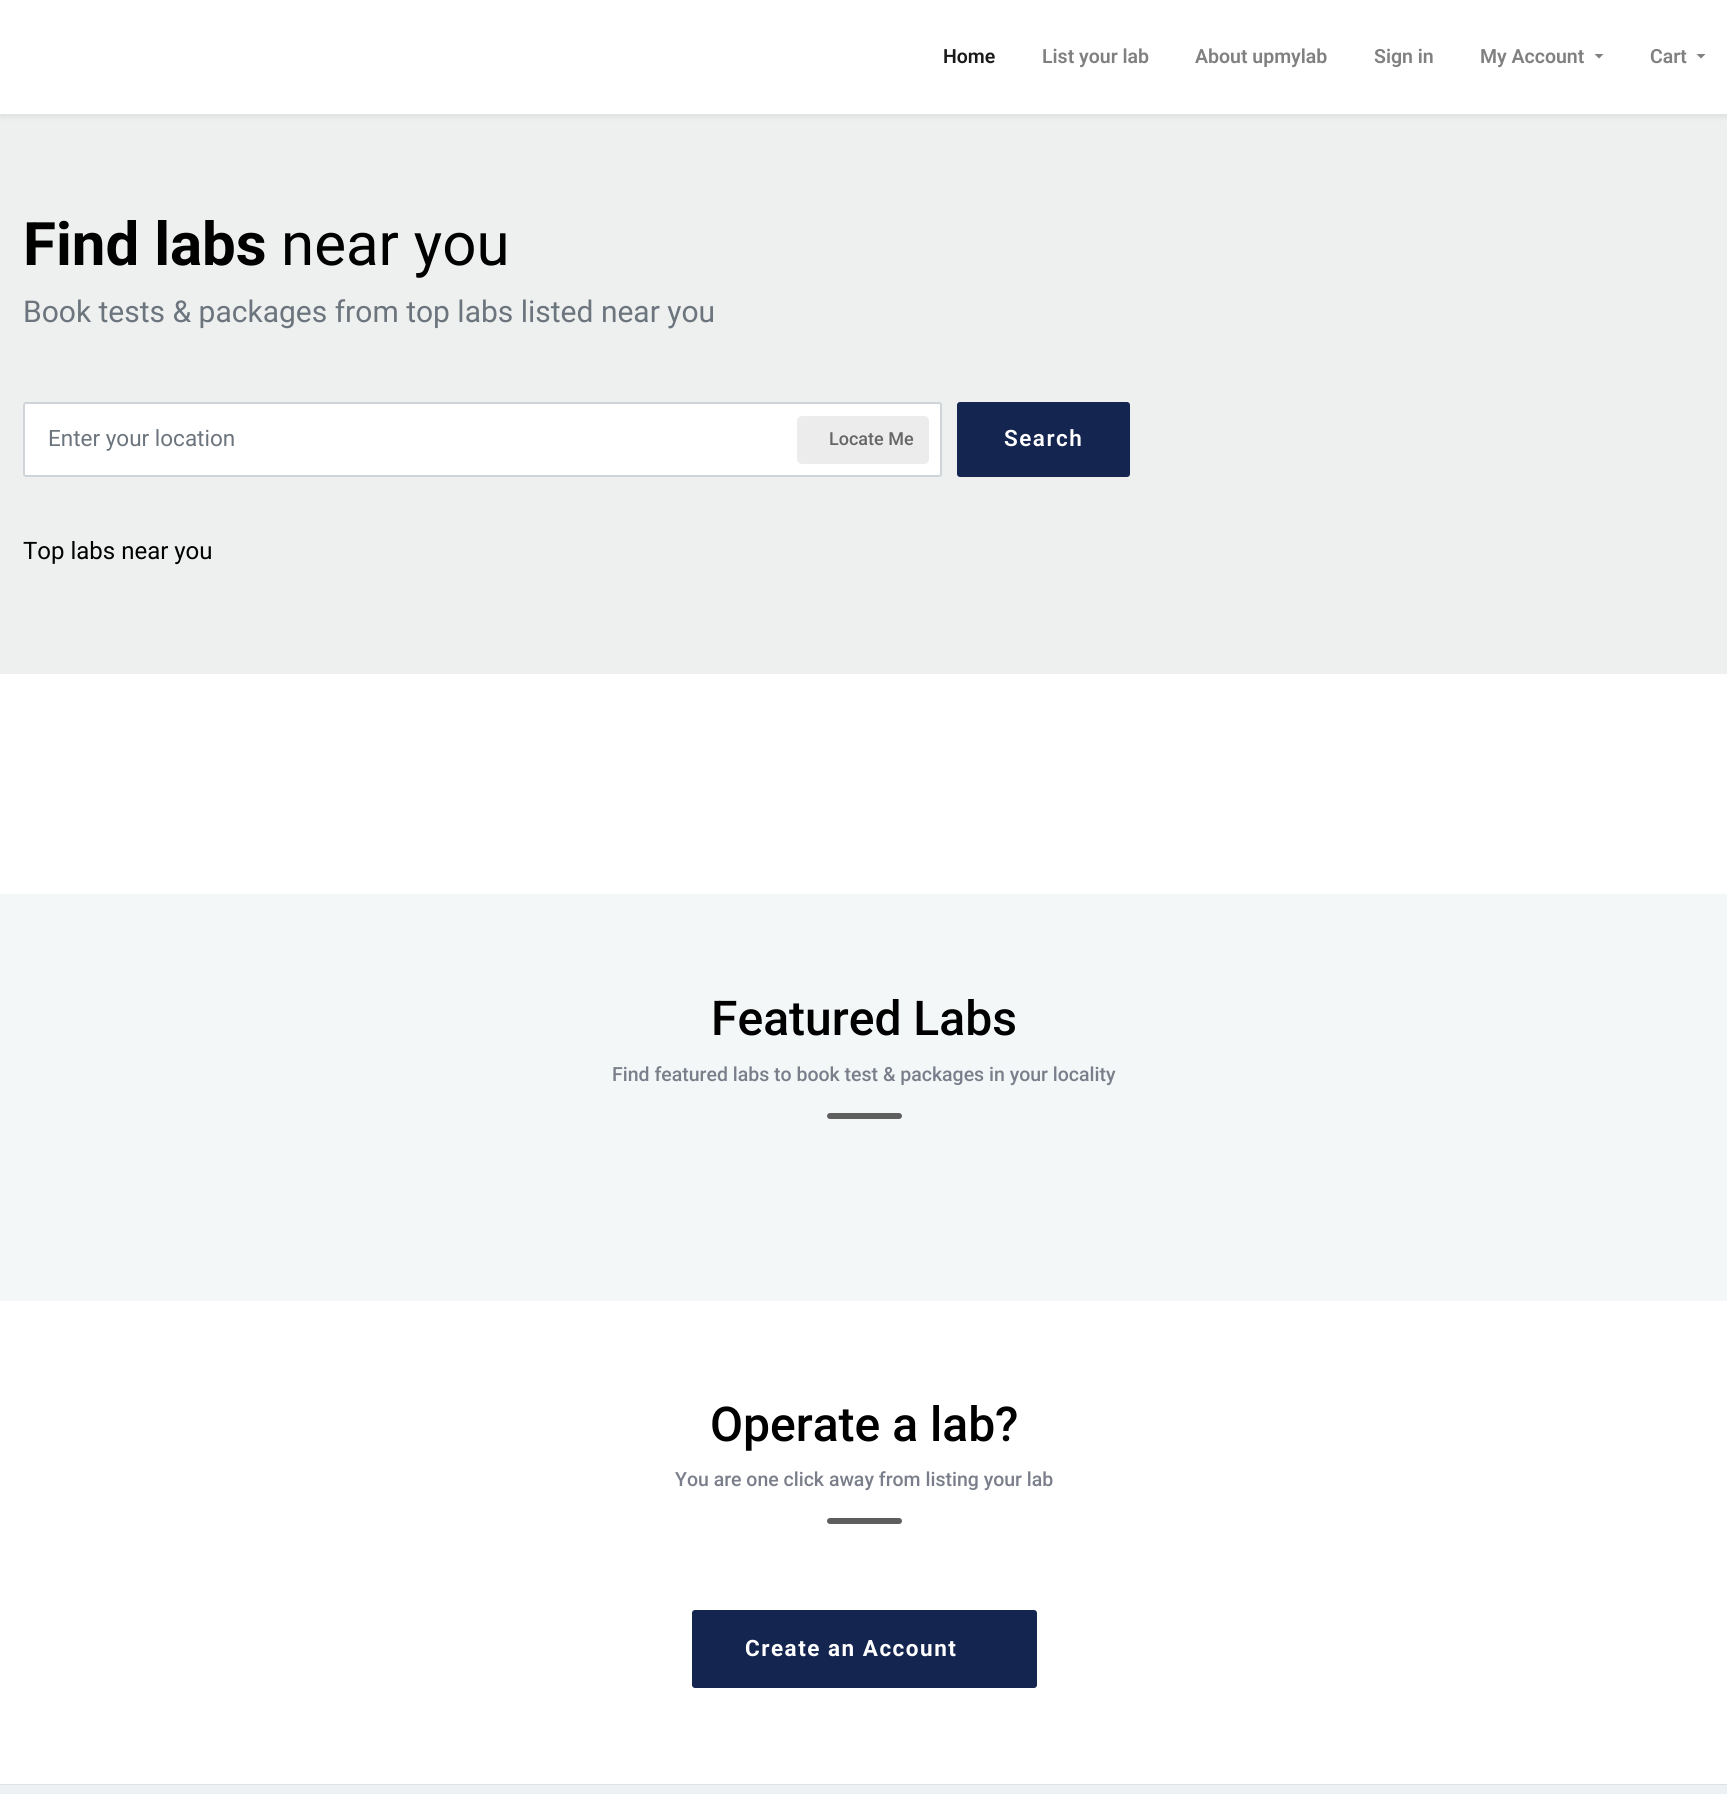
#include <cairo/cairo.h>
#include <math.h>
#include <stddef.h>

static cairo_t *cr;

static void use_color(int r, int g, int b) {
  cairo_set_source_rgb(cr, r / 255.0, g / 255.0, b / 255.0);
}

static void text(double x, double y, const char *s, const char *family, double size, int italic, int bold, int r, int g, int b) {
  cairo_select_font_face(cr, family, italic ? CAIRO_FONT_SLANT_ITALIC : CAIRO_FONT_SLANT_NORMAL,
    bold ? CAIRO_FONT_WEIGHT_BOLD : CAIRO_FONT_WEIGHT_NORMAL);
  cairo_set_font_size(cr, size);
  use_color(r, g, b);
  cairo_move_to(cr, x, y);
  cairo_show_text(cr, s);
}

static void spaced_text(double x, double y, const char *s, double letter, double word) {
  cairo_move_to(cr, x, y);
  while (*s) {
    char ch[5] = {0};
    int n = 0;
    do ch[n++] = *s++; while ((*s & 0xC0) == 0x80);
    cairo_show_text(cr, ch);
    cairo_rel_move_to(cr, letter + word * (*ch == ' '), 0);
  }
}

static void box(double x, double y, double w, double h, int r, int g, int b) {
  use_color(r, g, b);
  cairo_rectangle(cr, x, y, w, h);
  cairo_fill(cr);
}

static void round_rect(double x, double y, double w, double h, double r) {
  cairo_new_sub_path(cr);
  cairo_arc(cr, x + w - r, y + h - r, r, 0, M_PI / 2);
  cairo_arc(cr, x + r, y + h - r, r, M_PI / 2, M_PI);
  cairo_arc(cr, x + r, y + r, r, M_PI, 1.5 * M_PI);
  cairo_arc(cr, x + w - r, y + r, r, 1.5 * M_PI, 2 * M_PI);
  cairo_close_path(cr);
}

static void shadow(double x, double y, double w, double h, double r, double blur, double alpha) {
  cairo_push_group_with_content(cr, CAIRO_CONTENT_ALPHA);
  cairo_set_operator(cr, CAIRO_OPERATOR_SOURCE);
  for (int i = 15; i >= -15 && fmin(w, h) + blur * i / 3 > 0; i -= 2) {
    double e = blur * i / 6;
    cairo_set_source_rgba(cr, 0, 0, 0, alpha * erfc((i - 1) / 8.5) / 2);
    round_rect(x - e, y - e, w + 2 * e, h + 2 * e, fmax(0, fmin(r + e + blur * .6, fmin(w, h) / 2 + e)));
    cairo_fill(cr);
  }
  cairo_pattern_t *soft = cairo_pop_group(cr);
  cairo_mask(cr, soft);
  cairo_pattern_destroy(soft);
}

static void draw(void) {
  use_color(243, 247, 248);
  cairo_paint(cr);
  box(0, 114, 1727, 560, 238, 240, 239);
  use_color(0, 0, 0);
  shadow(0, 3, 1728, 114, 0, 3, 0.07);
  box(0, 0, 1727, 114, 255, 255, 255);
  use_color(128, 128, 128);
  cairo_new_path(cr);
  cairo_move_to(cr, 1594.5, 54);
  cairo_line_to(cr, 1603.5, 54);
  cairo_line_to(cr, 1599, 58.5);
  cairo_close_path(cr);
  cairo_fill(cr);
  cairo_new_path(cr);
  cairo_move_to(cr, 1696.5, 54);
  cairo_line_to(cr, 1705.5, 54);
  cairo_line_to(cr, 1701, 58.5);
  cairo_close_path(cr);
  cairo_fill(cr);
  box(25, 404, 915, 71, 255, 255, 255);
  round_rect(24, 403, 917, 73, 2);
  use_color(206, 212, 218);
  cairo_stroke(cr);
  use_color(236, 236, 236);
  round_rect(797, 416, 132, 48, 5);
  cairo_fill(cr);
  use_color(20, 37, 80);
  round_rect(958, 403, 171, 73, 2);
  cairo_fill_preserve(cr);
  cairo_stroke(cr);
  box(0, 674, 1727, 220, 255, 255, 255);
  use_color(94, 94, 94);
  round_rect(827, 1113, 75, 6, 3);
  cairo_fill(cr);
  box(0, 1301, 1727, 483, 255, 255, 255);
  box(0, 1784, 1727, 1, 222, 226, 230);
  use_color(94, 94, 94);
  round_rect(827, 1518, 75, 6, 3);
  cairo_fill(cr);
  use_color(20, 37, 80);
  round_rect(693, 1611, 343, 76, 2);
  cairo_fill_preserve(cr);
  cairo_stroke(cr);
  box(0, 1785, 1727, 9, 237, 241, 244);
  text(943, 63, "Home", "Roboto SemiBold", 19.5, 0, 0, 26, 26, 26);
  text(1042, 63, "List your lab", "Roboto SemiBold", 19.5, 0, 0, 128, 128, 128);
  text(1195, 63, "About upmylab", "Roboto SemiBold", 19.5, 0, 0, 128, 128, 128);
  text(1374, 63, "Sign in", "Roboto SemiBold", 19.5, 0, 0, 128, 128, 128);
  text(1480, 63, "My Account", "Roboto SemiBold", 19.5, 0, 0, 128, 128, 128);
  text(1650, 63, "Cart", "Roboto SemiBold", 19.5, 0, 0, 128, 128, 128);
  text(23, 265, "Find labs", "Roboto", 60, 0, 1, 0, 0, 0);
  text(281, 265, "near you", "Roboto", 60, 0, 0, 0, 0, 0);
  text(23, 322, "Book tests & packages from top labs listed near you", "Roboto", 30, 0, 0, 108, 117, 125);
  text(48, 446, "Enter your location", "Roboto", 22.5, 0, 0, 108, 117, 125);
  text(829, 445, "Locate Me", "Roboto Medium", 18, 0, 0, 102, 102, 102);
  cairo_select_font_face(cr, "Roboto SemiBold", CAIRO_FONT_SLANT_NORMAL, CAIRO_FONT_WEIGHT_NORMAL);
  cairo_set_font_size(cr, 22.5);
  use_color(255, 255, 255);
  spaced_text(1004, 446, "Search", 1.5, 0);
  text(23, 559, "Top labs near you", "Roboto", 24, 0, 0, 0, 0, 0);
  text(711, 1035, "Featured Labs", "Roboto Medium", 48, 0, 0, 0, 0, 0);
  text(612, 1081, "Find featured labs to book test & packages in your locality", "Roboto Medium", 19.5, 0, 0, 122, 126, 138);
  text(710, 1441, "Operate a lab?", "Roboto Medium", 48, 0, 0, 0, 0, 0);
  text(675, 1486, "You are one click away from listing your lab", "Roboto Medium", 19.5, 0, 0, 122, 126, 138);
  cairo_select_font_face(cr, "Roboto", CAIRO_FONT_SLANT_NORMAL, CAIRO_FONT_WEIGHT_BOLD);
  cairo_set_font_size(cr, 22.5);
  use_color(255, 255, 255);
  spaced_text(745, 1656, "Create an Account", 1.5, 0);
}

int main(void) {
  cairo_surface_t *surface = cairo_image_surface_create(CAIRO_FORMAT_RGB24, 1727, 1794);
  cr = cairo_create(surface);
  cairo_font_options_t *options = cairo_font_options_create();
  cairo_font_options_set_hint_metrics(options, CAIRO_HINT_METRICS_OFF);
  cairo_font_options_set_hint_style(options, CAIRO_HINT_STYLE_NONE);
  cairo_set_font_options(cr, options);
  cairo_set_miter_limit(cr, 4);
  draw();
  cairo_surface_write_to_png(surface, "out.png");
  cairo_font_options_destroy(options);
  cairo_destroy(cr);
  cairo_surface_destroy(surface);
  return 0;
}
